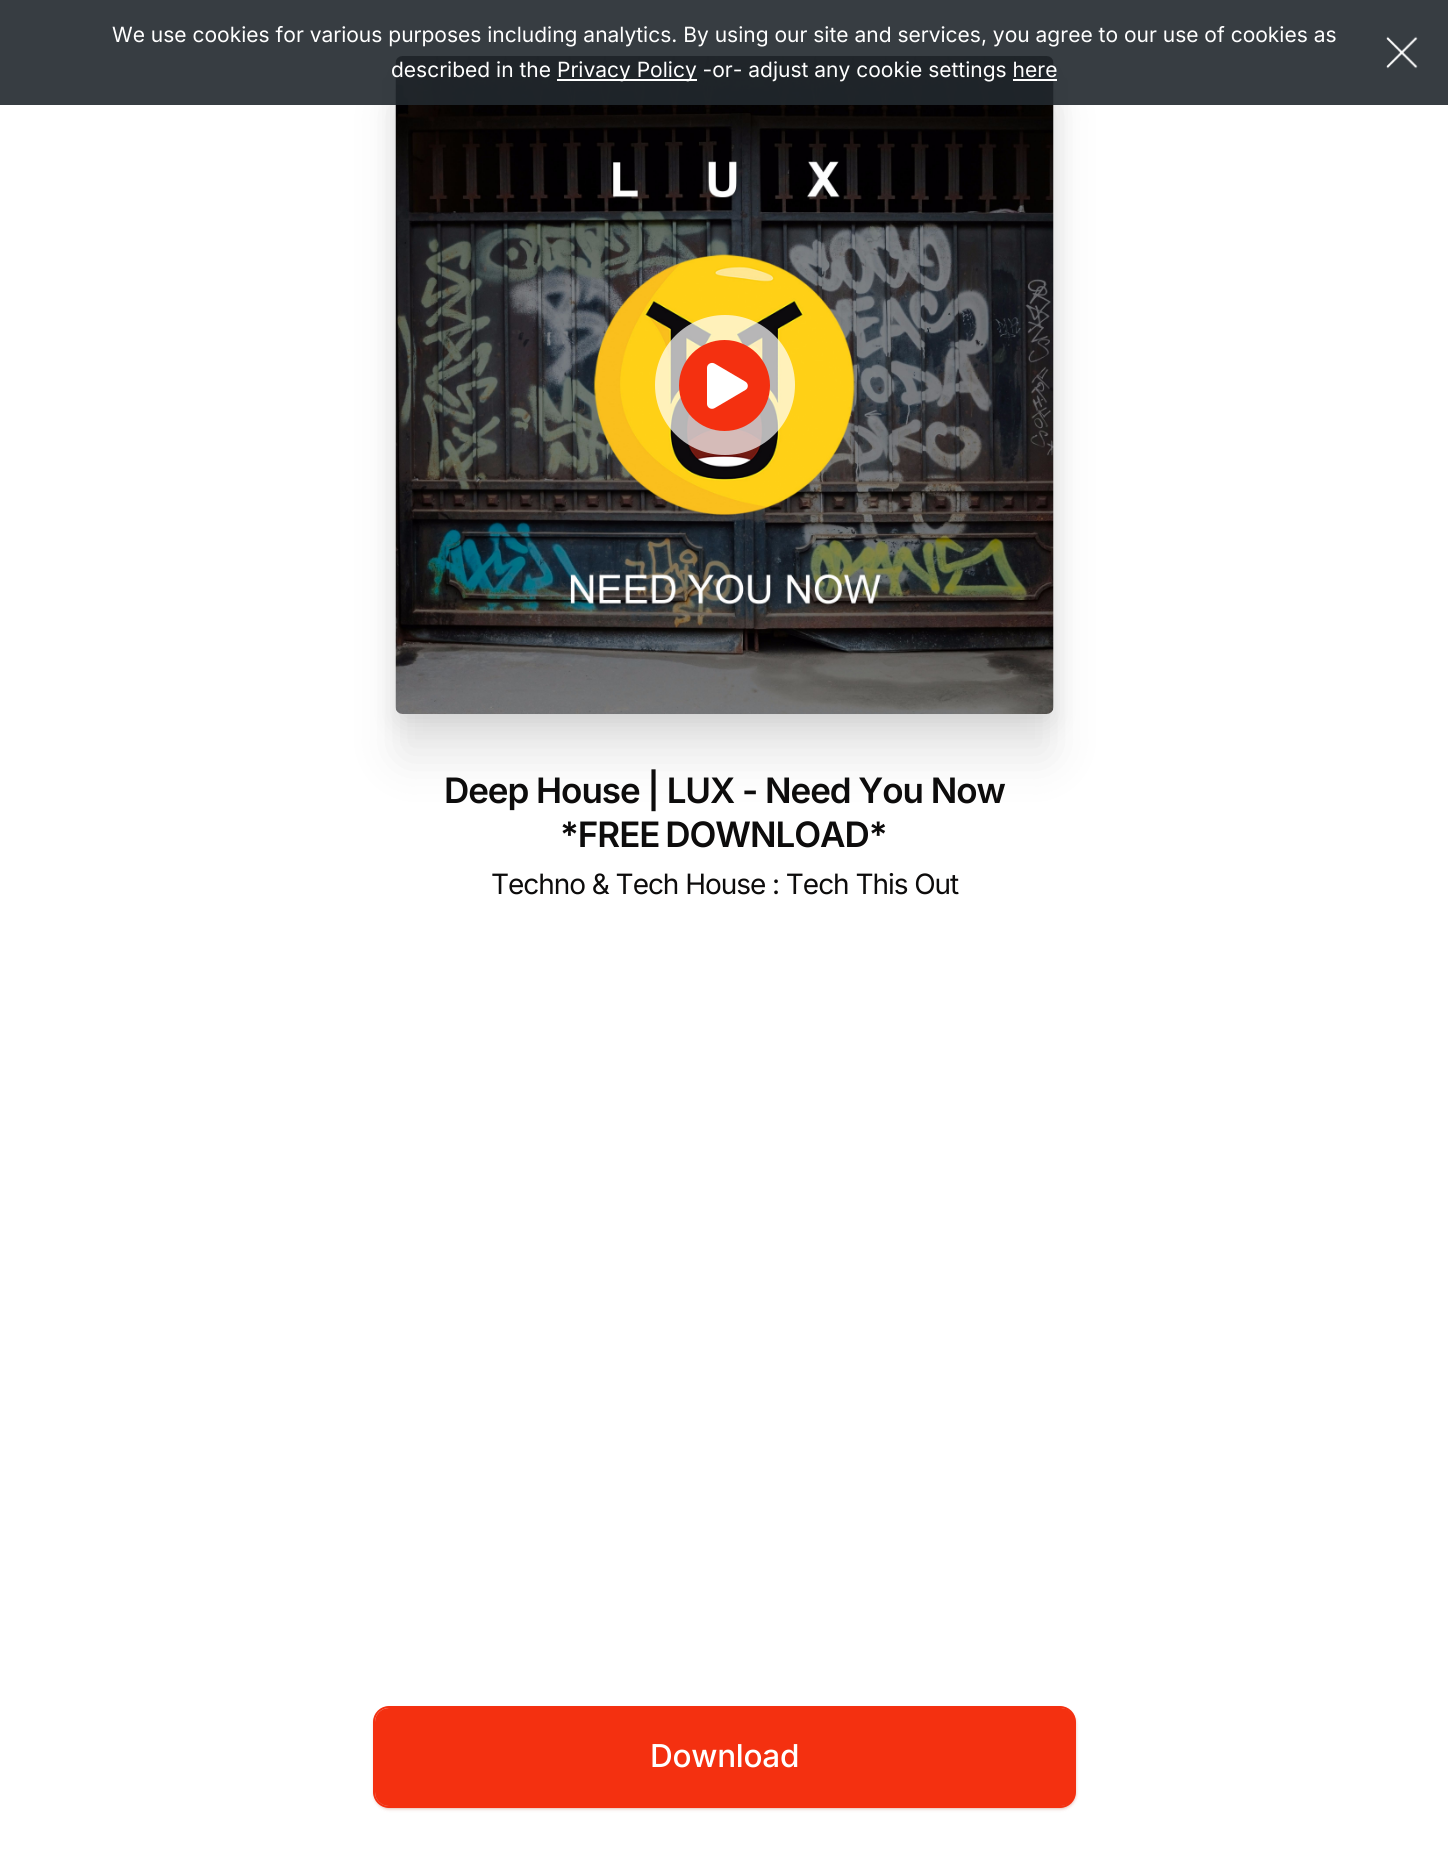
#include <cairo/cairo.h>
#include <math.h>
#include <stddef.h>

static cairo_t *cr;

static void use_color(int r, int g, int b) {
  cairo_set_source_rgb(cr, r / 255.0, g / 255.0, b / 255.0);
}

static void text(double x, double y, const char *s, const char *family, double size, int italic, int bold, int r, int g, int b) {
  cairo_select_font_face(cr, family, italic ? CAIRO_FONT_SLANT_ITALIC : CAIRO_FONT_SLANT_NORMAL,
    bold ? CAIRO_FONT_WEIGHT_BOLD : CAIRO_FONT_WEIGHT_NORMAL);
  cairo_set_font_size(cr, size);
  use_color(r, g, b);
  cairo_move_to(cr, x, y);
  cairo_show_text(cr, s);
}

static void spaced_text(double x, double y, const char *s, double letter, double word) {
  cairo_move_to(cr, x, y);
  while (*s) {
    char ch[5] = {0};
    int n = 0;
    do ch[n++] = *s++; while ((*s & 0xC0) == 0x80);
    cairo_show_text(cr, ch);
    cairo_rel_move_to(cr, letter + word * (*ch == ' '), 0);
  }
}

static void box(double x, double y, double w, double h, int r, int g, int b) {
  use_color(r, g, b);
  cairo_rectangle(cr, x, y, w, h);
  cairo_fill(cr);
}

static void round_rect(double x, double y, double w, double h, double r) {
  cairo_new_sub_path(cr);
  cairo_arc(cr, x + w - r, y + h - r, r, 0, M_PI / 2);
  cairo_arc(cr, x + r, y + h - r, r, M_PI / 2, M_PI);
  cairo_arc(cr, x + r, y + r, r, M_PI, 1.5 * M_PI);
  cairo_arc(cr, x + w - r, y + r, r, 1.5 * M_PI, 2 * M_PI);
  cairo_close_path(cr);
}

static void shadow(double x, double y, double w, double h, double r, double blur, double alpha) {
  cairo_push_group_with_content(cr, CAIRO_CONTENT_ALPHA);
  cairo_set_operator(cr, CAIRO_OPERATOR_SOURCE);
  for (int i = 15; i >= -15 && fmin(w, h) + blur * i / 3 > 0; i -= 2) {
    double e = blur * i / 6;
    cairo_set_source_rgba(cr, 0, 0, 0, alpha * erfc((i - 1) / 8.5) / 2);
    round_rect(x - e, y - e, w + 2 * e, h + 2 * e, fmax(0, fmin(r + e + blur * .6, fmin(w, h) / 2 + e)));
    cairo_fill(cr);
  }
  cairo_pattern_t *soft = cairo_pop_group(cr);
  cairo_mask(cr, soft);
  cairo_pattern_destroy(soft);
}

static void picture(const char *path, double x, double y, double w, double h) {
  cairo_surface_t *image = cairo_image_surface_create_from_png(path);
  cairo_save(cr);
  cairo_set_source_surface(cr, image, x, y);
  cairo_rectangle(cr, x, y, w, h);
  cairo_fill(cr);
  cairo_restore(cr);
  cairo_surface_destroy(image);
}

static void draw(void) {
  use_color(255, 255, 255);
  cairo_paint(cr);
  use_color(0, 0, 0);
  shadow(396, 67, 658, 658, 7, 12, 0.1);
  shadow(396, 102, 658, 658, 7, 23, 0.09);
  use_color(230, 230, 230);
  round_rect(396, 56, 658, 658, 7);
  cairo_fill(cr);
  picture("img_02.png", 395, 56, 659, 658);
  cairo_set_source_rgba(cr, 0.133, 0.157, 0.18, 0.9);
  cairo_rectangle(cr, 0, 0, 1448, 105);
  cairo_fill(cr);
  box(557, 79, 140, 2, 255, 255, 255);
  box(1013, 79, 44, 2, 255, 255, 255);
  picture("img_01.png", 1386, 36, 32, 33);
  cairo_set_source_rgba(cr, 1, 1, 1, 0.7);
  cairo_arc(cr, 725, 385, 70, 0, 2 * M_PI);
  cairo_fill(cr);
  use_color(244, 48, 16);
  cairo_arc(cr, 724.5, 385.5, 45.5, 0, 2 * M_PI);
  cairo_fill(cr);
  picture("img_03.png", 707, 362, 41, 47);
  use_color(168, 33, 11);
  shadow(375, 1710, 700, 98, 14, 2, 0.5);
  round_rect(374, 1707, 701, 100, 15);
  use_color(244, 48, 16);
  cairo_stroke(cr);
  round_rect(376, 1709, 698, 96, 13);
  cairo_fill_preserve(cr);
  cairo_stroke(cr);
  text(112, 42, "We use cookies for various purposes including analytics. By using our site and services, you agree to our use of cookies as", "Inter", 21, 0, 0, 255, 255, 255);
  text(391, 77, "described in the", "Inter", 21, 0, 0, 255, 255, 255);
  text(557, 77, "Privacy Policy -or- adjust any cookie settings here", "Inter", 21, 0, 0, 255, 255, 255);
  cairo_select_font_face(cr, "Inter SemiBold", CAIRO_FONT_SLANT_NORMAL, CAIRO_FONT_WEIGHT_NORMAL);
  cairo_set_font_size(cr, 35);
  use_color(13, 12, 12);
  spaced_text(444, 803, "Deep House | LUX - Need You Now", -1.05, 0);
  spaced_text(560, 847, "*FREE DOWNLOAD*", -1.05, -2);
  cairo_select_font_face(cr, "Inter", CAIRO_FONT_SLANT_NORMAL, CAIRO_FONT_WEIGHT_NORMAL);
  cairo_set_font_size(cr, 28);
  spaced_text(491, 894, "Techno & Tech House : Tech This Out", -1.05, 0);
  cairo_select_font_face(cr, "Inter Medium", CAIRO_FONT_SLANT_NORMAL, CAIRO_FONT_WEIGHT_NORMAL);
  cairo_set_font_size(cr, 31.5);
  use_color(255, 255, 255);
  spaced_text(650, 1767, "Download", -0.25, 0);
}

int main(void) {
  cairo_surface_t *surface = cairo_image_surface_create(CAIRO_FORMAT_RGB24, 1448, 1862);
  cr = cairo_create(surface);
  cairo_font_options_t *options = cairo_font_options_create();
  cairo_font_options_set_hint_metrics(options, CAIRO_HINT_METRICS_OFF);
  cairo_font_options_set_hint_style(options, CAIRO_HINT_STYLE_NONE);
  cairo_set_font_options(cr, options);
  cairo_set_miter_limit(cr, 4);
  draw();
  cairo_surface_write_to_png(surface, "out.png");
  cairo_font_options_destroy(options);
  cairo_destroy(cr);
  cairo_surface_destroy(surface);
  return 0;
}
